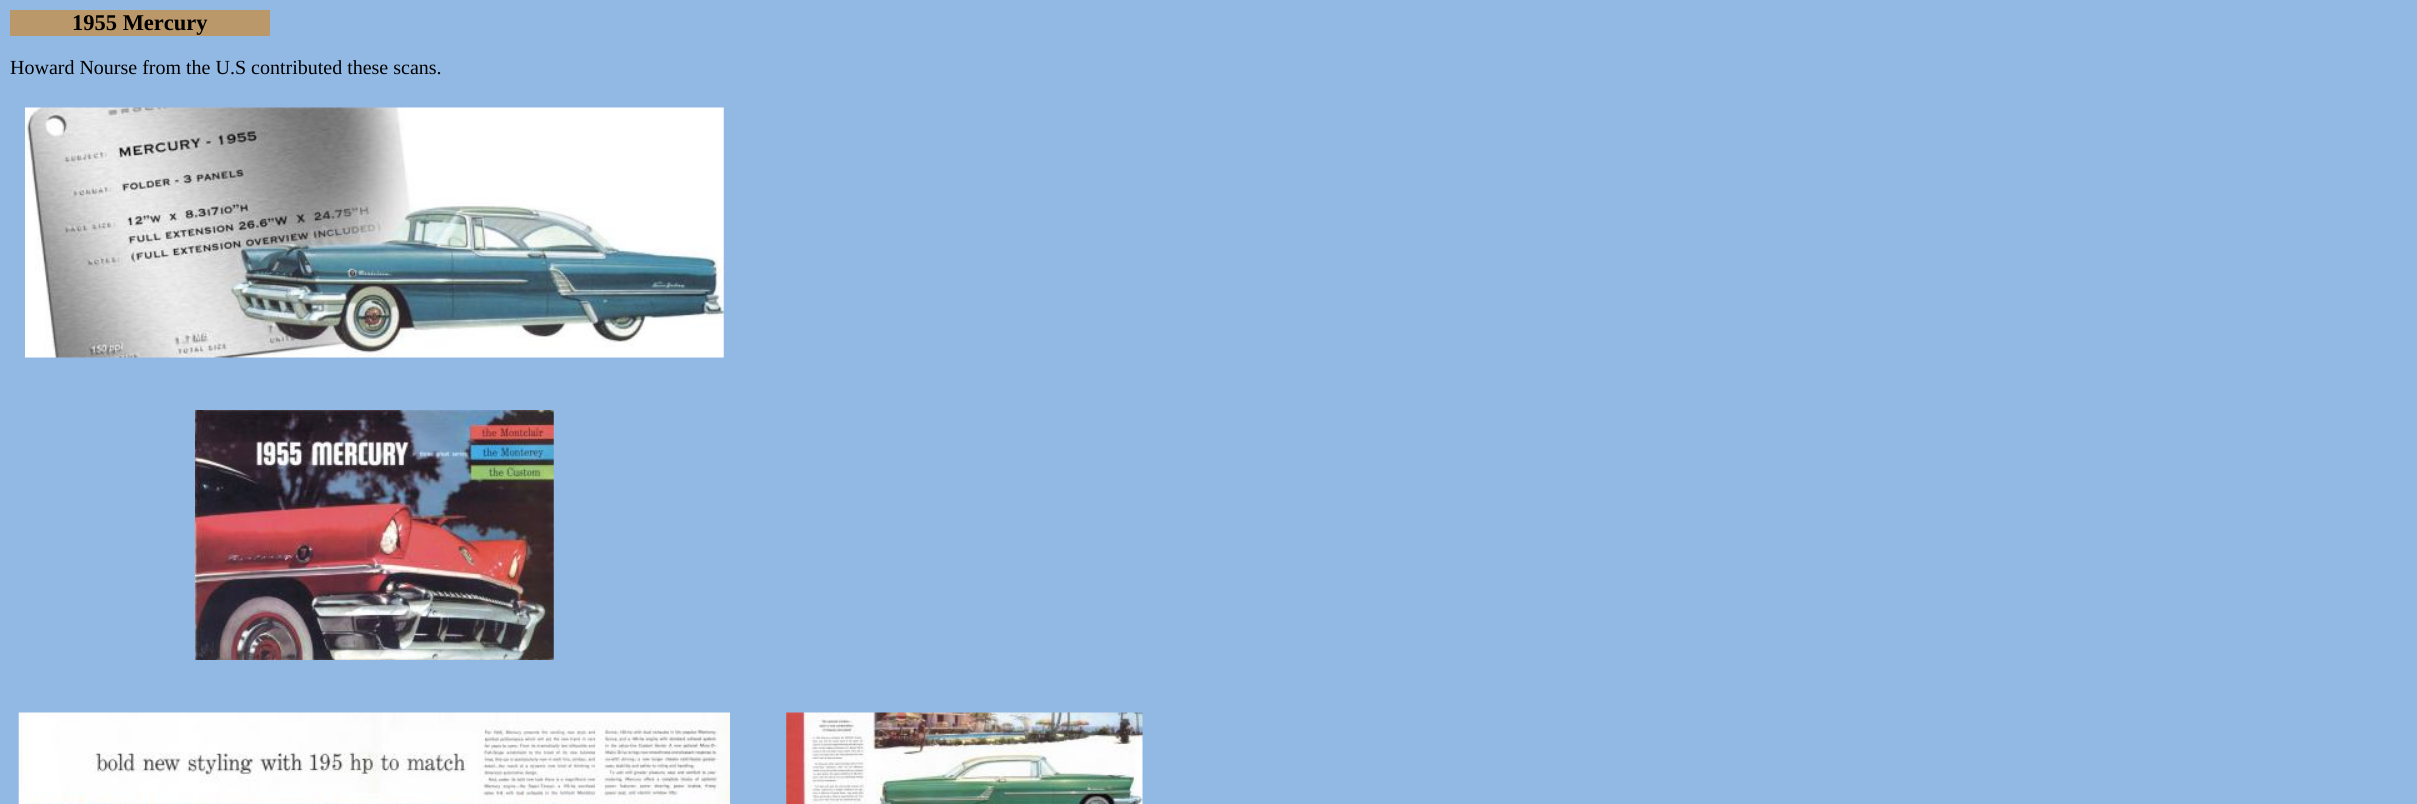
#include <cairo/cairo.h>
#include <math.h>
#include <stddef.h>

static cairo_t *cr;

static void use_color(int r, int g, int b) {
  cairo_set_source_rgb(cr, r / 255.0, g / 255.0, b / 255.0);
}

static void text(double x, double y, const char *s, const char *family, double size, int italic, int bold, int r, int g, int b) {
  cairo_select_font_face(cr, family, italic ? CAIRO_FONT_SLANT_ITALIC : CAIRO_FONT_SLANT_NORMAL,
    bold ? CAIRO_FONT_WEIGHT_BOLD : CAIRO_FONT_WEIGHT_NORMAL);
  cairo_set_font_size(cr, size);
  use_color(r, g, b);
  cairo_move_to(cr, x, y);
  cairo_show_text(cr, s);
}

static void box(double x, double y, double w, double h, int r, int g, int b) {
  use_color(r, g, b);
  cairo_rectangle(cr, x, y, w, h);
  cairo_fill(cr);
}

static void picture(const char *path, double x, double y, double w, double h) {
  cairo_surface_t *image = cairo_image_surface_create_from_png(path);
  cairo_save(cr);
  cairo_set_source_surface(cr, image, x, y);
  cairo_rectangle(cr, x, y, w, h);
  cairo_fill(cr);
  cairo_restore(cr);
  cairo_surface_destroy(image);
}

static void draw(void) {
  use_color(146, 185, 228);
  cairo_paint(cr);
  box(10, 10, 260, 26, 186, 152, 105);
  picture("img_01.png", 25, 107, 699, 251);
  picture("img_02.png", 195, 410, 359, 250);
  picture("img_03.png", 18, 712, 712, 92);
  picture("img_04.png", 786, 712, 357, 92);
  text(72, 30, "1955 Mercury", "Liberation Serif", 22.5, 0, 1, 0, 0, 0);
  text(10, 74, "Howard Nourse from the U.S contributed these scans.", "Liberation Serif", 20, 0, 0, 0, 0, 0);
}

int main(void) {
  cairo_surface_t *surface = cairo_image_surface_create(CAIRO_FORMAT_RGB24, 2417, 804);
  cr = cairo_create(surface);
  cairo_font_options_t *options = cairo_font_options_create();
  cairo_font_options_set_hint_metrics(options, CAIRO_HINT_METRICS_OFF);
  cairo_font_options_set_hint_style(options, CAIRO_HINT_STYLE_NONE);
  cairo_set_font_options(cr, options);
  cairo_set_miter_limit(cr, 4);
  draw();
  cairo_surface_write_to_png(surface, "out.png");
  cairo_font_options_destroy(options);
  cairo_destroy(cr);
  cairo_surface_destroy(surface);
  return 0;
}
